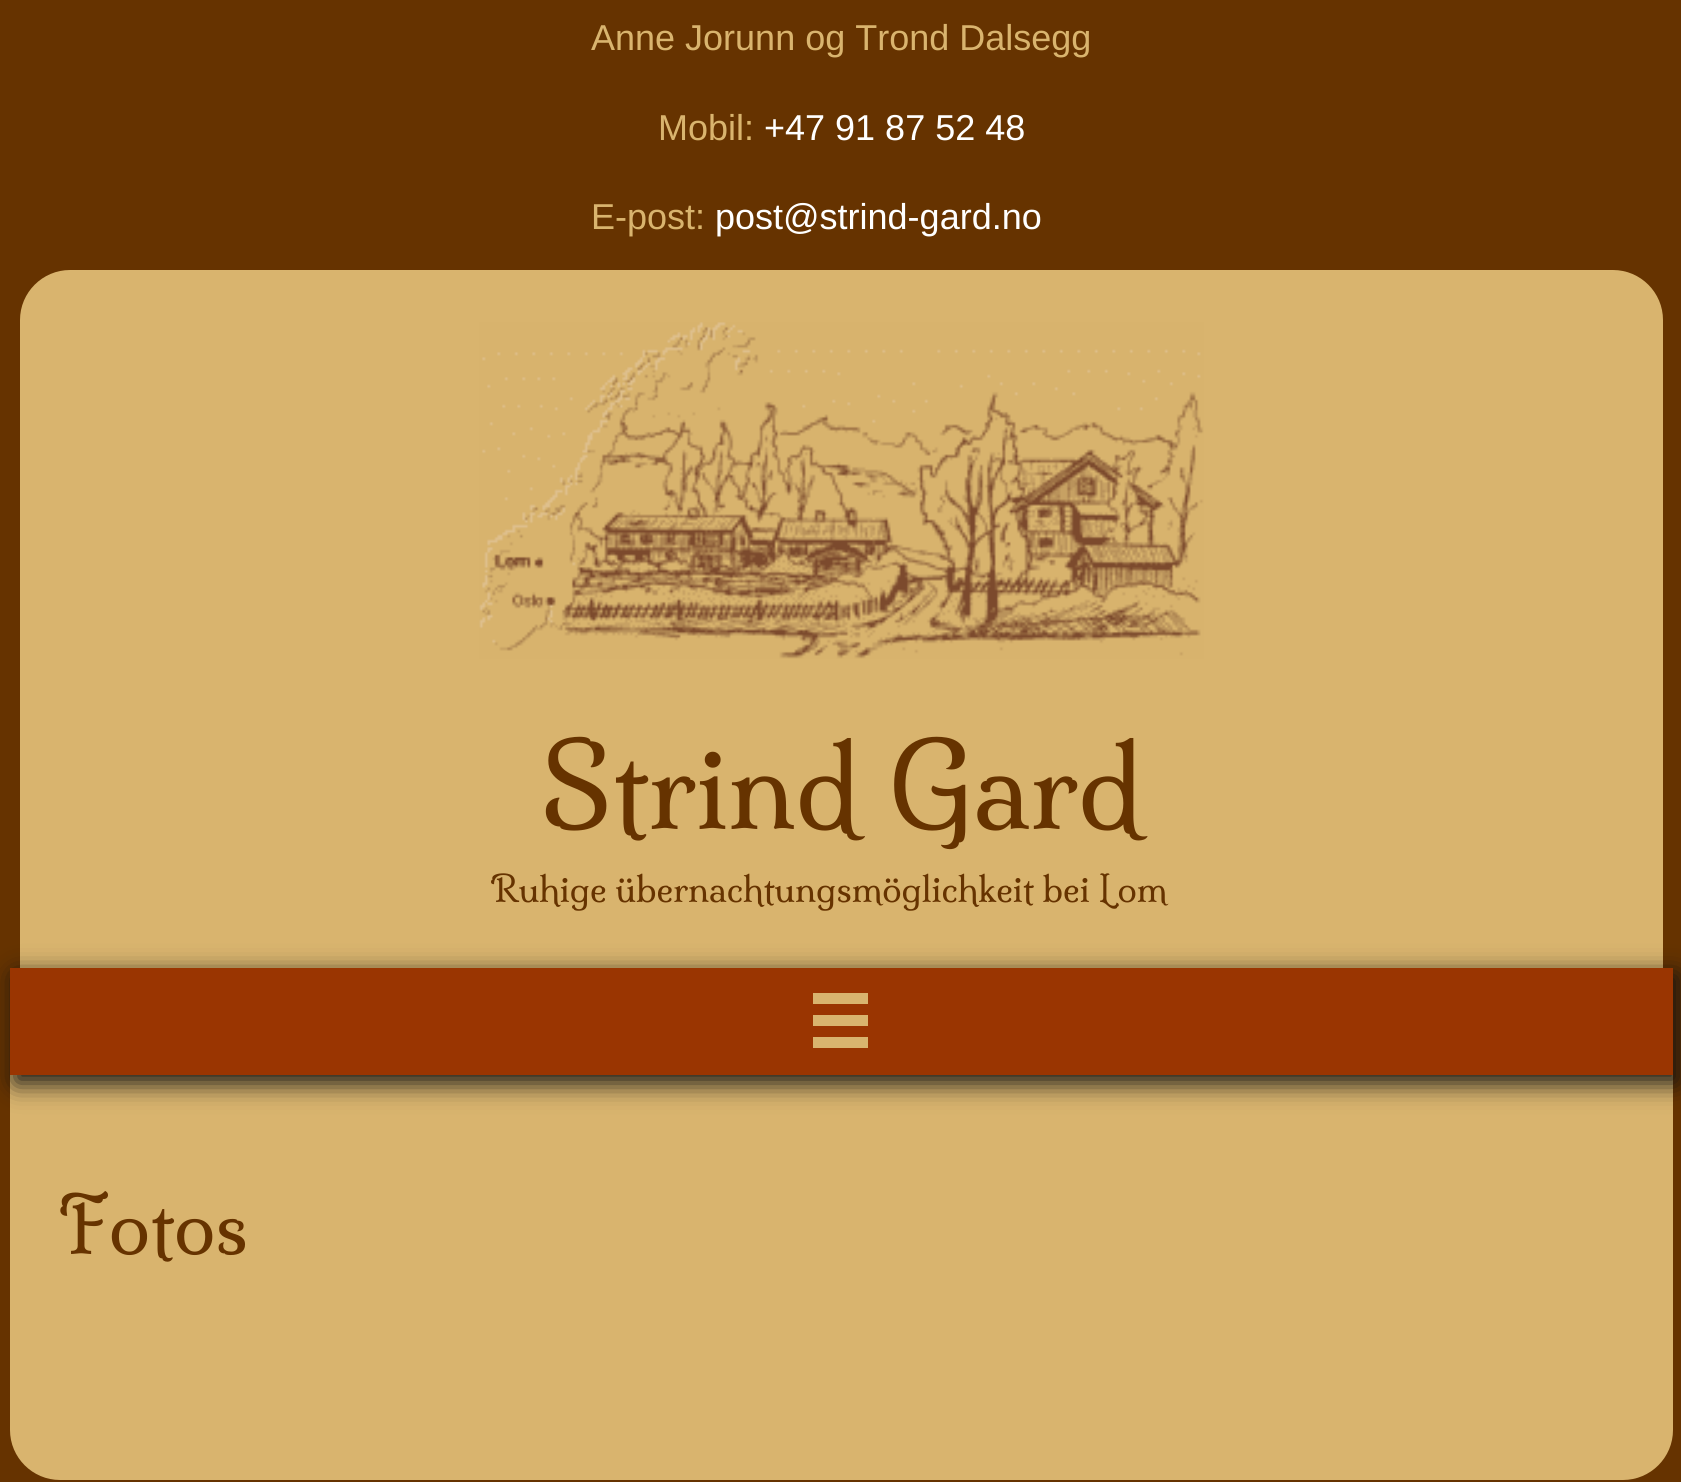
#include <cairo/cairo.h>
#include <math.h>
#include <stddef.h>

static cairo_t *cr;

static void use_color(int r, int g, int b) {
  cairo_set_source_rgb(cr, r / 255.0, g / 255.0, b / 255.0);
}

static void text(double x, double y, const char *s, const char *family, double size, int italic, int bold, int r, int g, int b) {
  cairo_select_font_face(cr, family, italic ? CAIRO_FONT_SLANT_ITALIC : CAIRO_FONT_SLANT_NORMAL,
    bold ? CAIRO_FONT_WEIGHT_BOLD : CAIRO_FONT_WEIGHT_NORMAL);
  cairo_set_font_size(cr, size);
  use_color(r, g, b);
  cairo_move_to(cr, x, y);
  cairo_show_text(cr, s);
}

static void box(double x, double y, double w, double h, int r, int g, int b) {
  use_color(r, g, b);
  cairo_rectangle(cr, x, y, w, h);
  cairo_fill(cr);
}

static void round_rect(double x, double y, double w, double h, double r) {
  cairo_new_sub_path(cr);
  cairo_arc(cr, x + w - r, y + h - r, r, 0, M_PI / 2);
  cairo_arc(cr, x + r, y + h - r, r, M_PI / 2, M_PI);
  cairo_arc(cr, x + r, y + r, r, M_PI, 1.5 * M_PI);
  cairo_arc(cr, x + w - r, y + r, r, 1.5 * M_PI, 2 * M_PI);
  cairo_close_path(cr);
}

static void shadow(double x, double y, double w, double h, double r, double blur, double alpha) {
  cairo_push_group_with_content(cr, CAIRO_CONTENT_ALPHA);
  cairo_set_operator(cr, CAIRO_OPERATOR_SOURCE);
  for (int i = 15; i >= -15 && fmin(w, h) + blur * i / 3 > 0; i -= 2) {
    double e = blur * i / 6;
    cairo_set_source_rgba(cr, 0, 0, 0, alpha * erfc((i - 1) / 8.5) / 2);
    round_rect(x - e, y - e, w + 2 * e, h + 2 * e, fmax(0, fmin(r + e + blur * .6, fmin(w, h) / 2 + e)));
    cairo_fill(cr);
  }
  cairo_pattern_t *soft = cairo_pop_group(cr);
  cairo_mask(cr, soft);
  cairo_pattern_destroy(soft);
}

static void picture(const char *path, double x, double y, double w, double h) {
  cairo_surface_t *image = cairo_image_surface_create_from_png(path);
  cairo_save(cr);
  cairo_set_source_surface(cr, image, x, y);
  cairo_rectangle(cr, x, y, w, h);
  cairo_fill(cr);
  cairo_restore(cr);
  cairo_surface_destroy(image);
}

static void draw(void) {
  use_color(102, 51, 0);
  cairo_paint(cr);
  use_color(217, 180, 110);
  cairo_new_path(cr);
  cairo_move_to(cr, 70, 270);
  cairo_line_to(cr, 1613, 270);
  cairo_curve_to(cr, 1640.5, 270, 1663, 292.5, 1663, 320);
  cairo_line_to(cr, 1663, 968);
  cairo_line_to(cr, 20, 968);
  cairo_line_to(cr, 20, 320);
  cairo_curve_to(cr, 20, 292.5, 42.5, 270, 70, 270);
  cairo_close_path(cr);
  cairo_fill(cr);
  picture("img_01.png", 479, 322, 725, 337);
  cairo_new_path(cr);
  cairo_move_to(cr, 10, 1075);
  cairo_line_to(cr, 1673, 1075);
  cairo_line_to(cr, 1673, 1430);
  cairo_curve_to(cr, 1673, 1457.5, 1650.5, 1480, 1623, 1480);
  cairo_line_to(cr, 60, 1480);
  cairo_curve_to(cr, 32.5, 1480, 10, 1457.5, 10, 1430);
  cairo_close_path(cr);
  cairo_fill(cr);
  use_color(17, 17, 17);
  shadow(15, 975, 1663, 108, 0, 12.5, 1);
  box(10, 968, 1663, 107, 154, 53, 1);
  box(813, 993, 55, 11, 217, 180, 110);
  box(813, 1015, 55, 11, 217, 180, 110);
  box(813, 1037, 55, 11, 217, 180, 110);
  text(591, 50, "Anne Jorunn og Trond Dalsegg", "Liberation Sans", 36, 0, 0, 217, 180, 110);
  text(658, 140, "Mobil:", "Liberation Sans", 36, 0, 0, 217, 180, 110);
  text(764, 140, "+47 91 87 52 48", "Liberation Sans", 36, 0, 0, 255, 255, 255);
  text(591, 229, "E-post:", "Liberation Sans", 36, 0, 0, 217, 180, 110);
  text(715, 229, "post@strind-gard.no", "Liberation Sans", 36, 0, 0, 255, 255, 255);
  text(540, 829, "Strind Gard", "Milonga", 112.5, 0, 0, 102, 51, 0);
  text(491, 902, "Ruhige übernachtungsmöglichkeit bei Lom", "Milonga", 35, 0, 0, 102, 51, 0);
  text(60, 1254, "Fotos", "Milonga", 75, 0, 0, 102, 51, 0);
}

int main(void) {
  cairo_surface_t *surface = cairo_image_surface_create(CAIRO_FORMAT_RGB24, 1681, 1482);
  cr = cairo_create(surface);
  cairo_font_options_t *options = cairo_font_options_create();
  cairo_font_options_set_hint_metrics(options, CAIRO_HINT_METRICS_OFF);
  cairo_font_options_set_hint_style(options, CAIRO_HINT_STYLE_NONE);
  cairo_set_font_options(cr, options);
  cairo_set_miter_limit(cr, 4);
  draw();
  cairo_surface_write_to_png(surface, "out.png");
  cairo_font_options_destroy(options);
  cairo_destroy(cr);
  cairo_surface_destroy(surface);
  return 0;
}
